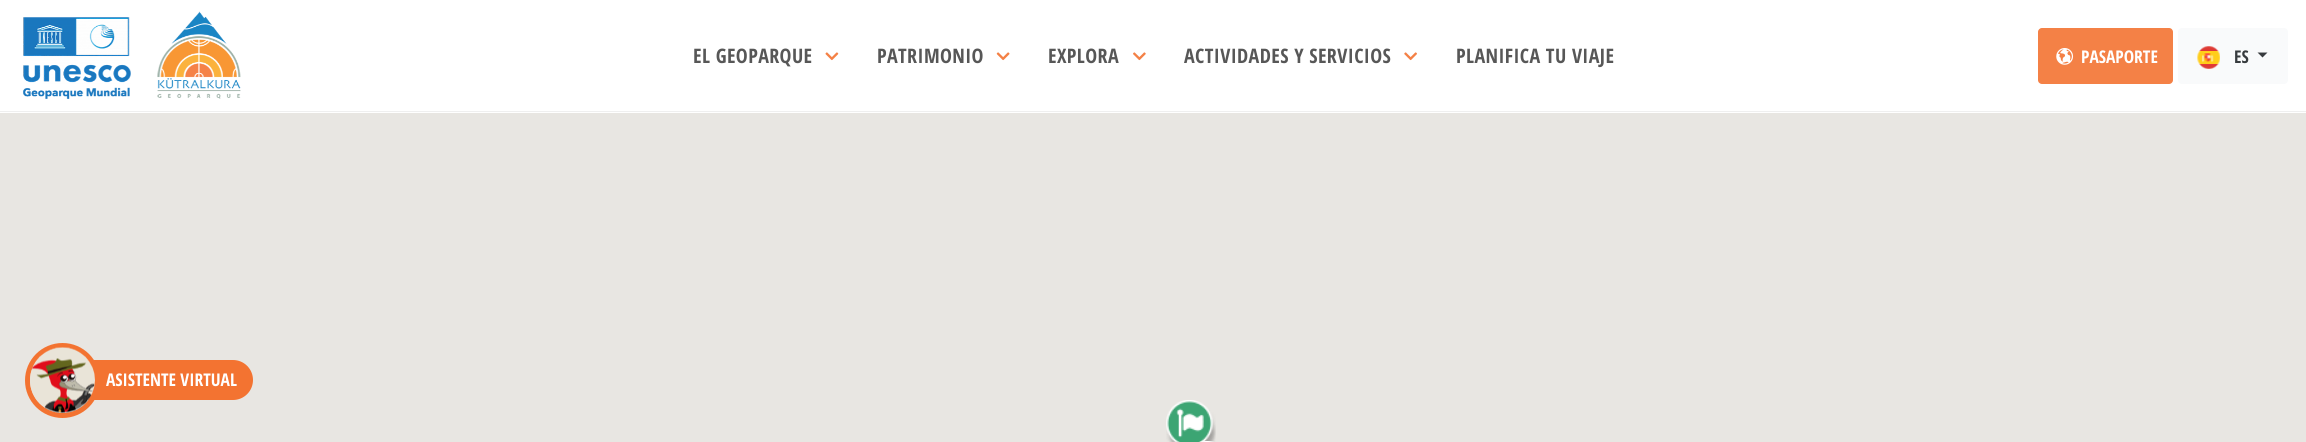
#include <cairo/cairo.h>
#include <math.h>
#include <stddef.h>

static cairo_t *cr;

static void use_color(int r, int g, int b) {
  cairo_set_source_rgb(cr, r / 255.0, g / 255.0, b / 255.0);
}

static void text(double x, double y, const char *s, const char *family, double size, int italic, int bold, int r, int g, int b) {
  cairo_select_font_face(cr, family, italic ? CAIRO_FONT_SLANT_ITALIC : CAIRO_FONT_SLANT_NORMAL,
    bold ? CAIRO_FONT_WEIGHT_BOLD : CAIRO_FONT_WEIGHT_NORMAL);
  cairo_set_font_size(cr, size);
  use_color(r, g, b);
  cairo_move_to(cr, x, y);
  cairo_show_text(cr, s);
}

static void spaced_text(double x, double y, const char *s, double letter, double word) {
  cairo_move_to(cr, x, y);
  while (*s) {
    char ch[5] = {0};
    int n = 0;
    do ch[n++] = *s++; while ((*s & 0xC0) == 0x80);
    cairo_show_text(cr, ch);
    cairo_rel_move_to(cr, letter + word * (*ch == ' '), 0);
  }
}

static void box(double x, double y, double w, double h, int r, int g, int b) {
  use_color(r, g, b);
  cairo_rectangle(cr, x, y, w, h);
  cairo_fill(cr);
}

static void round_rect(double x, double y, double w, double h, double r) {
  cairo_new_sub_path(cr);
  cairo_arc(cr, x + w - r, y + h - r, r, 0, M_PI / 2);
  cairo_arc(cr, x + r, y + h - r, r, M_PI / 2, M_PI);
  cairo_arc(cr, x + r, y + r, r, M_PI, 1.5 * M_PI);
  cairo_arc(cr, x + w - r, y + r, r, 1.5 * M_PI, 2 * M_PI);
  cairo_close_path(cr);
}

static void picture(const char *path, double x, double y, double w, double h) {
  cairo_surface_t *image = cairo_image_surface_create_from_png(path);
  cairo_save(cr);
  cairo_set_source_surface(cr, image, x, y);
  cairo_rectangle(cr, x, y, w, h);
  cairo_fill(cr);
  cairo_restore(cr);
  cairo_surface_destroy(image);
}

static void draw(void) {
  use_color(232, 230, 226);
  cairo_paint(cr);
  box(0, 0, 2306, 113, 255, 255, 255);
  box(0, 111, 2306, 1, 239, 239, 239);
  picture("img_01.png", 23, 11, 218, 88);
  picture("img_02.png", 825, 52, 14, 9);
  picture("img_03.png", 996, 52, 14, 9);
  picture("img_04.png", 1133, 52, 13, 9);
  picture("img_05.png", 1404, 52, 13, 9);
  use_color(244, 129, 70);
  round_rect(2038, 28, 135, 56, 4);
  cairo_fill(cr);
  picture("img_06.png", 2056, 48, 18, 17);
  use_color(249, 250, 251);
  round_rect(2178, 28, 110, 56, 4);
  cairo_fill(cr);
  picture("img_07.png", 2197, 46, 23, 23);
  use_color(55, 59, 62);
  cairo_new_path(cr);
  cairo_move_to(cr, 2257.5, 52.5);
  cairo_line_to(cr, 2267.5, 52.5);
  cairo_line_to(cr, 2262.5, 57.5);
  cairo_close_path(cr);
  cairo_fill(cr);
  use_color(243, 115, 49);
  round_rect(63, 360, 190, 40, 20);
  cairo_fill(cr);
  cairo_arc(cr, 62.5, 380.5, 35, 0, 2 * M_PI);
  cairo_set_line_width(cr, 5);
  cairo_stroke(cr);
  picture("img_08.png", 30, 347, 65, 66);
  picture("img_09.png", 1166, 400, 50, 42);
  picture("img_10.png", 1199, 441, 15, 1);
  cairo_select_font_face(cr, "Open Sans Condensed", CAIRO_FONT_SLANT_NORMAL, CAIRO_FONT_WEIGHT_BOLD);
  cairo_set_font_size(cr, 20);
  use_color(87, 87, 87);
  spaced_text(693, 63, "EL GEOPARQUE", 0.4, 0);
  spaced_text(877, 63, "PATRIMONIO", 0.4, 0);
  spaced_text(1048, 63, "EXPLORA", 0.4, 0);
  spaced_text(1184, 63, "ACTIVIDADES Y SERVICIOS", 0.4, 0);
  spaced_text(1456, 63, "PLANIFICA TU VIAJE", 0.4, 0);
  text(2081, 63, "PASAPORTE", "Open Sans Condensed", 17.5, 0, 1, 255, 255, 255);
  text(2234, 63, "ES", "Open Sans Condensed", 17.5, 0, 1, 55, 59, 62);
  text(106, 386, "ASISTENTE VIRTUAL", "Open Sans Condensed", 17.5, 0, 1, 255, 255, 255);
}

int main(void) {
  cairo_surface_t *surface = cairo_image_surface_create(CAIRO_FORMAT_RGB24, 2306, 442);
  cr = cairo_create(surface);
  cairo_font_options_t *options = cairo_font_options_create();
  cairo_font_options_set_hint_metrics(options, CAIRO_HINT_METRICS_OFF);
  cairo_font_options_set_hint_style(options, CAIRO_HINT_STYLE_NONE);
  cairo_set_font_options(cr, options);
  cairo_set_miter_limit(cr, 4);
  draw();
  cairo_surface_write_to_png(surface, "out.png");
  cairo_font_options_destroy(options);
  cairo_destroy(cr);
  cairo_surface_destroy(surface);
  return 0;
}
